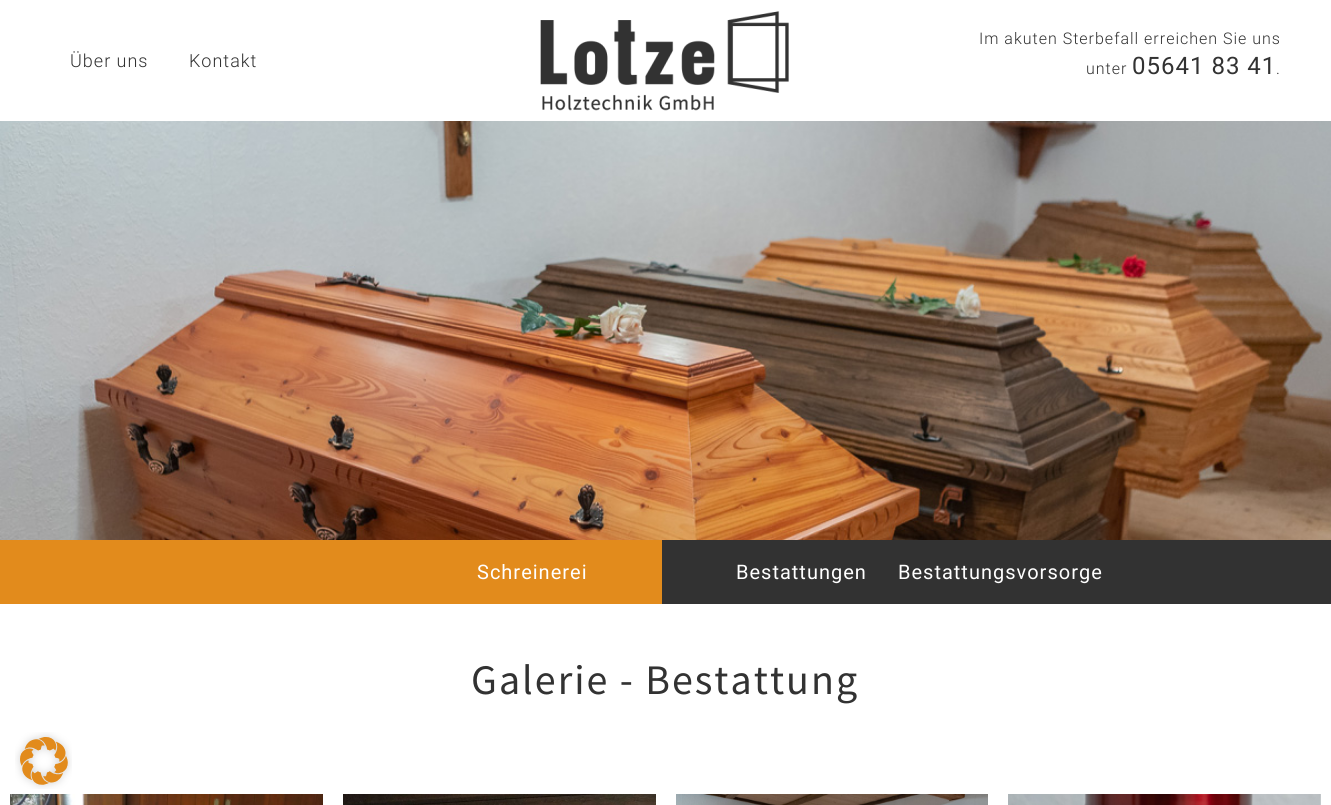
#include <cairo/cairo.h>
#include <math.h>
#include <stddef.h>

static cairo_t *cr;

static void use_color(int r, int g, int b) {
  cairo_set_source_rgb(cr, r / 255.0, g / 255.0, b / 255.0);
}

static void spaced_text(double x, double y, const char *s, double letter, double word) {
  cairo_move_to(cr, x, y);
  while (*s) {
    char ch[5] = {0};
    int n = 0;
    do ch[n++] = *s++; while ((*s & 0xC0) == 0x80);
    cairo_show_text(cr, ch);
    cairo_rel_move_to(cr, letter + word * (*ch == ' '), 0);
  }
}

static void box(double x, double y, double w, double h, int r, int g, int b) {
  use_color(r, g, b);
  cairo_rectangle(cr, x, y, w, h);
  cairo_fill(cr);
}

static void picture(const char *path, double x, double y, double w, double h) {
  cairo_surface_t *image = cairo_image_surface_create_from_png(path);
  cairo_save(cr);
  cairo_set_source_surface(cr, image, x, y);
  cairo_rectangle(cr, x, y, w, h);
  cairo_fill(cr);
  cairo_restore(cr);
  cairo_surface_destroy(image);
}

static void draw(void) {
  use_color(255, 255, 255);
  cairo_paint(cr);
  picture("img_01.png", 540, 11, 249, 100);
  picture("img_02.png", 0, 121, 1331, 419);
  box(0, 540, 662, 64, 226, 139, 28);
  box(662, 540, 669, 64, 50, 50, 50);
  picture("img_03.png", 10, 794, 313, 11);
  picture("img_04.png", 343, 794, 313, 11);
  picture("img_05.png", 676, 794, 312, 11);
  picture("img_06.png", 1008, 794, 313, 11);
  picture("img_07.png", 15, 732, 57, 57);
  cairo_select_font_face(cr, "Roboto Light", CAIRO_FONT_SLANT_NORMAL, CAIRO_FONT_WEIGHT_NORMAL);
  cairo_set_font_size(cr, 18);
  spaced_text(70, 67, "Über uns", 1, 0);
  spaced_text(189, 67, "Kontakt", 1, 0);
  cairo_set_font_size(cr, 16);
  spaced_text(979, 44, "Im akuten Sterbefall erreichen Sie uns", 1, 0);
  spaced_text(1086, 74, "unter", 1, 0);
  cairo_select_font_face(cr, "Roboto", CAIRO_FONT_SLANT_NORMAL, CAIRO_FONT_WEIGHT_NORMAL);
  cairo_set_font_size(cr, 24);
  spaced_text(1132, 74, "05641 83 41", 1, 0);
  cairo_select_font_face(cr, "Roboto Light", CAIRO_FONT_SLANT_NORMAL, CAIRO_FONT_WEIGHT_NORMAL);
  cairo_set_font_size(cr, 16);
  spaced_text(1276, 74, ".", 1, 0);
  cairo_select_font_face(cr, "Roboto", CAIRO_FONT_SLANT_NORMAL, CAIRO_FONT_WEIGHT_NORMAL);
  cairo_set_font_size(cr, 20);
  use_color(255, 255, 255);
  spaced_text(477, 579, "Schreinerei", 1, 0);
  spaced_text(736, 579, "Bestattungen", 1, 0);
  spaced_text(898, 579, "Bestattungsvorsorge", 1, 0);
  cairo_select_font_face(cr, "Source Sans Pro", CAIRO_FONT_SLANT_NORMAL, CAIRO_FONT_WEIGHT_NORMAL);
  cairo_set_font_size(cr, 42);
  use_color(50, 50, 50);
  spaced_text(471, 694, "Galerie - Bestattung", 2, 0);
}

int main(void) {
  cairo_surface_t *surface = cairo_image_surface_create(CAIRO_FORMAT_RGB24, 1331, 805);
  cr = cairo_create(surface);
  cairo_font_options_t *options = cairo_font_options_create();
  cairo_font_options_set_hint_metrics(options, CAIRO_HINT_METRICS_OFF);
  cairo_font_options_set_hint_style(options, CAIRO_HINT_STYLE_NONE);
  cairo_set_font_options(cr, options);
  cairo_set_miter_limit(cr, 4);
  draw();
  cairo_surface_write_to_png(surface, "out.png");
  cairo_font_options_destroy(options);
  cairo_destroy(cr);
  cairo_surface_destroy(surface);
  return 0;
}
